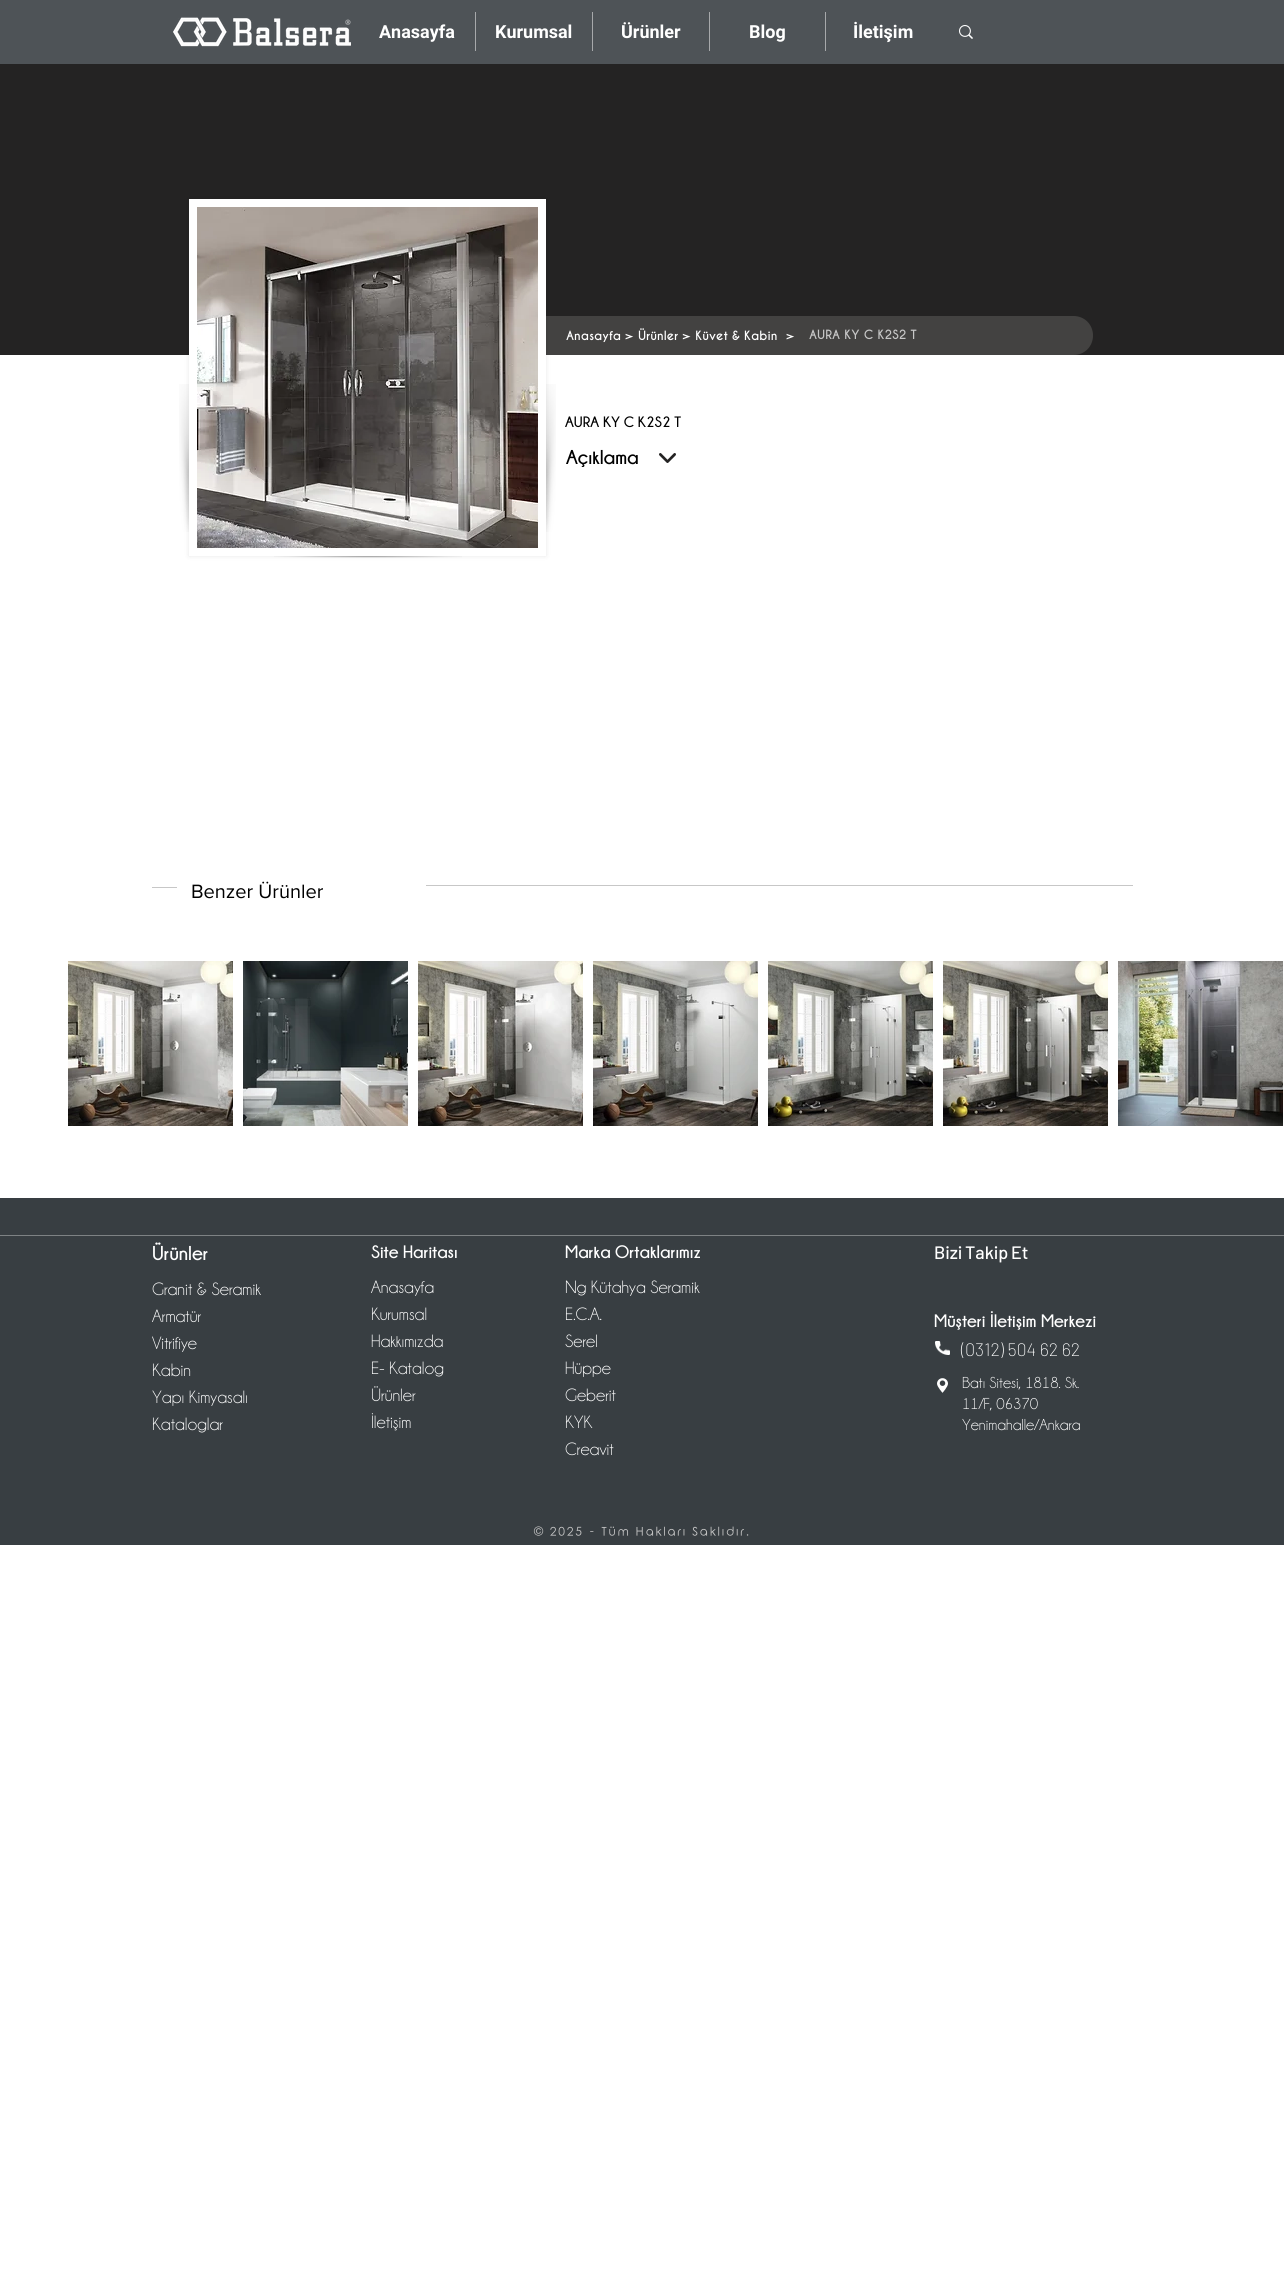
#include <cairo/cairo.h>
#include <math.h>
#include <stddef.h>

static cairo_t *cr;

static void use_color(int r, int g, int b) {
  cairo_set_source_rgb(cr, r / 255.0, g / 255.0, b / 255.0);
}

static void text(double x, double y, const char *s, const char *family, double size, int italic, int bold, int r, int g, int b) {
  cairo_select_font_face(cr, family, italic ? CAIRO_FONT_SLANT_ITALIC : CAIRO_FONT_SLANT_NORMAL,
    bold ? CAIRO_FONT_WEIGHT_BOLD : CAIRO_FONT_WEIGHT_NORMAL);
  cairo_set_font_size(cr, size);
  use_color(r, g, b);
  cairo_move_to(cr, x, y);
  cairo_show_text(cr, s);
}

static void spaced_text(double x, double y, const char *s, double letter, double word) {
  cairo_move_to(cr, x, y);
  while (*s) {
    char ch[5] = {0};
    int n = 0;
    do ch[n++] = *s++; while ((*s & 0xC0) == 0x80);
    cairo_show_text(cr, ch);
    cairo_rel_move_to(cr, letter + word * (*ch == ' '), 0);
  }
}

static void box(double x, double y, double w, double h, int r, int g, int b) {
  use_color(r, g, b);
  cairo_rectangle(cr, x, y, w, h);
  cairo_fill(cr);
}

static void round_rect(double x, double y, double w, double h, double r) {
  cairo_new_sub_path(cr);
  cairo_arc(cr, x + w - r, y + h - r, r, 0, M_PI / 2);
  cairo_arc(cr, x + r, y + h - r, r, M_PI / 2, M_PI);
  cairo_arc(cr, x + r, y + r, r, M_PI, 1.5 * M_PI);
  cairo_arc(cr, x + w - r, y + r, r, 1.5 * M_PI, 2 * M_PI);
  cairo_close_path(cr);
}

static void shadow(double x, double y, double w, double h, double r, double blur, double alpha) {
  cairo_push_group_with_content(cr, CAIRO_CONTENT_ALPHA);
  cairo_set_operator(cr, CAIRO_OPERATOR_SOURCE);
  for (int i = 15; i >= -15 && fmin(w, h) + blur * i / 3 > 0; i -= 2) {
    double e = blur * i / 6;
    cairo_set_source_rgba(cr, 0, 0, 0, alpha * erfc((i - 1) / 8.5) / 2);
    round_rect(x - e, y - e, w + 2 * e, h + 2 * e, fmax(0, fmin(r + e + blur * .6, fmin(w, h) / 2 + e)));
    cairo_fill(cr);
  }
  cairo_pattern_t *soft = cairo_pop_group(cr);
  cairo_mask(cr, soft);
  cairo_pattern_destroy(soft);
}

static void picture(const char *path, double x, double y, double w, double h) {
  cairo_surface_t *image = cairo_image_surface_create_from_png(path);
  cairo_save(cr);
  cairo_set_source_surface(cr, image, x, y);
  cairo_rectangle(cr, x, y, w, h);
  cairo_fill(cr);
  cairo_restore(cr);
  cairo_surface_destroy(image);
}

static void draw(void) {
  use_color(255, 255, 255);
  cairo_paint(cr);
  box(0, 0, 1284, 64, 78, 83, 87);
  picture("img_01.png", 173, 17, 178, 30);
  box(475, 12, 1, 39, 167, 169, 171);
  box(592, 12, 1, 39, 167, 169, 171);
  box(709, 12, 1, 39, 167, 169, 171);
  box(825, 12, 1, 39, 167, 169, 171);
  picture("img_02.png", 959, 25, 14, 14);
  box(0, 64, 1284, 291, 36, 35, 35);
  use_color(67, 66, 65);
  cairo_new_path(cr);
  cairo_move_to(cr, 546, 316);
  cairo_line_to(cr, 1073.5, 316);
  cairo_curve_to(cr, 1084.5, 316, 1093, 324.5, 1093, 335.5);
  cairo_curve_to(cr, 1093, 346.5, 1084.5, 355, 1073.5, 355);
  cairo_line_to(cr, 546, 355);
  cairo_close_path(cr);
  cairo_fill(cr);
  use_color(0, 0, 0);
  shadow(189, 199, 357, 357, 0, 2.5, 0.1);
  box(189, 199, 357, 357, 255, 255, 255);
  picture("img_03.png", 197, 207, 341, 341);
  picture("img_04.png", 274, 556, 188, 2);
  picture("img_05.png", 179, 384, 10, 148);
  picture("img_06.png", 546, 384, 10, 148);
  picture("img_07.png", 659, 453, 17, 10);
  box(426, 885, 707, 1, 199, 199, 199);
  box(152, 887, 25, 1, 199, 199, 199);
  picture("img_08.png", 68, 961, 165, 165);
  picture("img_09.png", 243, 961, 165, 165);
  picture("img_10.png", 418, 961, 165, 165);
  picture("img_11.png", 593, 961, 165, 165);
  picture("img_12.png", 768, 961, 165, 165);
  picture("img_13.png", 943, 961, 165, 165);
  picture("img_14.png", 1118, 961, 165, 165);
  box(0, 1198, 1284, 347, 56, 62, 66);
  box(0, 1235, 1284, 1, 126, 130, 132);
  picture("img_15.png", 935, 1341, 15, 14);
  picture("img_16.png", 937, 1378, 11, 15);
  text(379, 38, "Anasayfa", "Roboto", 18, 0, 1, 255, 255, 255);
  text(495, 38, "Kurumsal", "Roboto", 18, 0, 1, 255, 255, 255);
  text(621, 38, "Ürünler", "Roboto", 18, 0, 1, 255, 255, 255);
  text(749, 38, "Blog", "Roboto", 18, 0, 1, 255, 255, 255);
  text(853, 38, "İletişim", "Roboto", 18, 0, 1, 255, 255, 255);
  text(566, 340, "Anasayfa > Ürünler > Küvet & Kabin", "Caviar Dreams", 12, 0, 1, 255, 255, 255);
  text(786, 340, ">", "Caviar Dreams", 12, 0, 1, 255, 255, 255);
  text(809, 339, "AURA KY C K2S2 T", "Caviar Dreams", 12, 0, 1, 199, 199, 199);
  text(565, 427, "AURA KY C K2S2 T", "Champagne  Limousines", 15, 0, 1, 0, 0, 0);
  text(566, 464, "Açıklama", "Champagne  Limousines", 20, 0, 1, 0, 0, 0);
  text(191, 898, "Benzer Ürünler", "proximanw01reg", 20, 0, 0, 0, 0, 0);
  text(152, 1260, "Ürünler", "Champagne  Limousines", 20, 0, 1, 255, 255, 255);
  text(152, 1295, "Granit & Seramik", "Champagne  Limousines", 18, 0, 0, 255, 255, 255);
  text(152, 1322, "Armatür", "Champagne  Limousines", 18, 0, 0, 255, 255, 255);
  text(152, 1349, "Vitrifiye", "Champagne  Limousines", 18, 0, 0, 255, 255, 255);
  text(152, 1376, "Kabin", "Champagne  Limousines", 18, 0, 0, 255, 255, 255);
  text(152, 1403, "Yapı Kimyasalı", "Champagne  Limousines", 18, 0, 0, 255, 255, 255);
  text(152, 1430, "Kataloglar", "Champagne  Limousines", 18, 0, 0, 255, 255, 255);
  text(371, 1258, "Site Haritası", "Champagne  Limousines", 18, 0, 1, 255, 255, 255);
  text(371, 1293, "Anasayfa", "Champagne  Limousines", 18, 0, 0, 255, 255, 255);
  text(371, 1320, "Kurumsal", "Champagne  Limousines", 18, 0, 0, 255, 255, 255);
  text(371, 1347, "Hakkımızda", "Champagne  Limousines", 18, 0, 0, 255, 255, 255);
  text(371, 1374, "E- Katalog", "Champagne  Limousines", 18, 0, 0, 255, 255, 255);
  text(371, 1401, "Ürünler", "Champagne  Limousines", 18, 0, 0, 255, 255, 255);
  text(371, 1428, "İletişim", "Champagne  Limousines", 18, 0, 0, 255, 255, 255);
  text(565, 1258, "Marka Ortaklarımız", "Champagne  Limousines", 18, 0, 1, 255, 255, 255);
  text(565, 1293, "Ng Kütahya Seramik", "Champagne  Limousines", 18, 0, 0, 255, 255, 255);
  text(565, 1320, "E.C.A.", "Champagne  Limousines", 18, 0, 0, 255, 255, 255);
  text(565, 1347, "Serel", "Champagne  Limousines", 18, 0, 0, 255, 255, 255);
  text(565, 1374, "Hüppe", "Champagne  Limousines", 18, 0, 0, 255, 255, 255);
  text(565, 1401, "Geberit", "Champagne  Limousines", 18, 0, 0, 255, 255, 255);
  text(565, 1428, "KYK", "Champagne  Limousines", 18, 0, 0, 255, 255, 255);
  text(565, 1455, "Creavit", "Champagne  Limousines", 18, 0, 0, 255, 255, 255);
  cairo_select_font_face(cr, "Barlow Medium", CAIRO_FONT_SLANT_NORMAL, CAIRO_FONT_WEIGHT_NORMAL);
  spaced_text(934, 1259, "Bizi Takip Et", 0, -1);
  text(934, 1327, "Müşteri İletişim Merkezi", "Champagne  Limousines", 18, 0, 1, 255, 255, 255);
  text(961, 1356, "(0312) 504 62 62", "Barlow ExtraLight", 18, 0, 0, 255, 255, 255);
  text(962, 1388, "Batı Sitesi, 1818. Sk.", "Champagne  Limousines", 16, 0, 0, 255, 255, 255);
  text(962, 1409, "11/F, 06370", "Champagne  Limousines", 16, 0, 0, 255, 255, 255);
  text(962, 1430, "Yenimahalle/Ankara", "Champagne  Limousines", 16, 0, 0, 255, 255, 255);
  cairo_select_font_face(cr, "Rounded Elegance", CAIRO_FONT_SLANT_NORMAL, CAIRO_FONT_WEIGHT_NORMAL);
  cairo_set_font_size(cr, 12);
  use_color(199, 199, 199);
  spaced_text(534, 1536, "© 2025 - Tüm Hakları Saklıdır.", 1.8, 0);
}

int main(void) {
  cairo_surface_t *surface = cairo_image_surface_create(CAIRO_FORMAT_RGB24, 1284, 2281);
  cr = cairo_create(surface);
  cairo_font_options_t *options = cairo_font_options_create();
  cairo_font_options_set_hint_metrics(options, CAIRO_HINT_METRICS_OFF);
  cairo_font_options_set_hint_style(options, CAIRO_HINT_STYLE_NONE);
  cairo_set_font_options(cr, options);
  cairo_set_miter_limit(cr, 4);
  draw();
  cairo_surface_write_to_png(surface, "out.png");
  cairo_font_options_destroy(options);
  cairo_destroy(cr);
  cairo_surface_destroy(surface);
  return 0;
}
